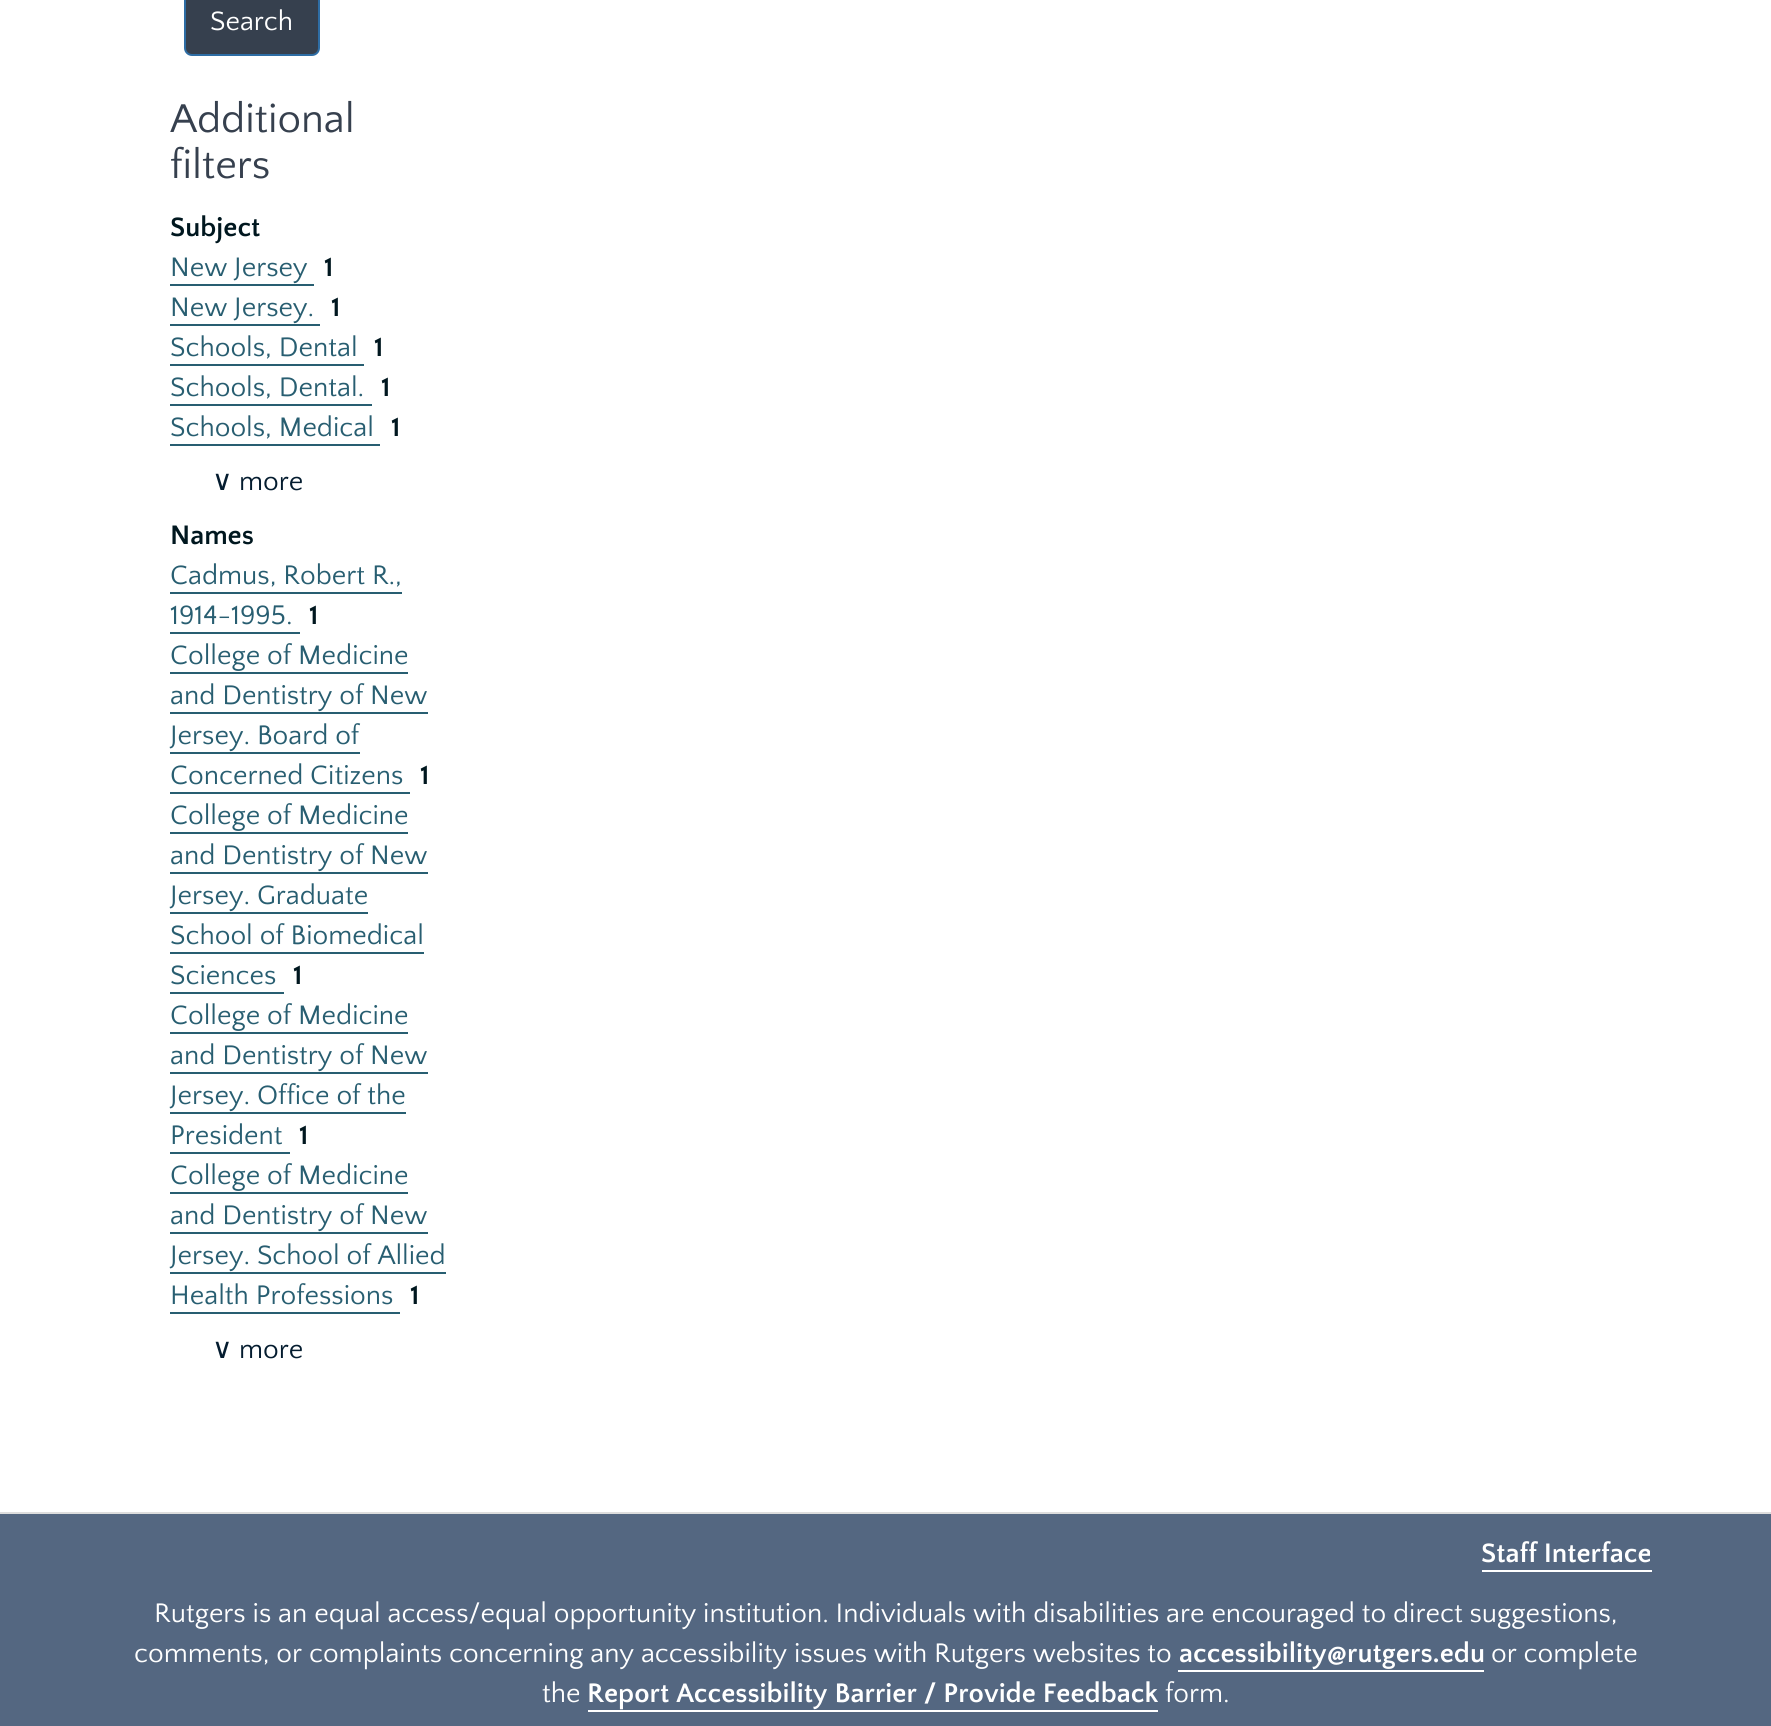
#include <cairo/cairo.h>
#include <math.h>
#include <stddef.h>

static cairo_t *cr;

static void use_color(int r, int g, int b) {
  cairo_set_source_rgb(cr, r / 255.0, g / 255.0, b / 255.0);
}

static void text(double x, double y, const char *s, const char *family, double size, int italic, int bold, int r, int g, int b) {
  cairo_select_font_face(cr, family, italic ? CAIRO_FONT_SLANT_ITALIC : CAIRO_FONT_SLANT_NORMAL,
    bold ? CAIRO_FONT_WEIGHT_BOLD : CAIRO_FONT_WEIGHT_NORMAL);
  cairo_set_font_size(cr, size);
  use_color(r, g, b);
  cairo_move_to(cr, x, y);
  cairo_show_text(cr, s);
}

static void box(double x, double y, double w, double h, int r, int g, int b) {
  use_color(r, g, b);
  cairo_rectangle(cr, x, y, w, h);
  cairo_fill(cr);
}

static void round_rect(double x, double y, double w, double h, double r) {
  cairo_new_sub_path(cr);
  cairo_arc(cr, x + w - r, y + h - r, r, 0, M_PI / 2);
  cairo_arc(cr, x + r, y + h - r, r, M_PI / 2, M_PI);
  cairo_arc(cr, x + r, y + r, r, M_PI, 1.5 * M_PI);
  cairo_arc(cr, x + w - r, y + r, r, 1.5 * M_PI, 2 * M_PI);
  cairo_close_path(cr);
}

static void draw(void) {
  use_color(255, 255, 255);
  cairo_paint(cr);
  use_color(54, 64, 78);
  round_rect(185, -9, 134, 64, 7);
  cairo_fill_preserve(cr);
  use_color(46, 109, 164);
  cairo_stroke(cr);
  box(170, 284, 144, 2, 40, 94, 113);
  box(170, 324, 150, 2, 40, 94, 113);
  box(170, 364, 194, 2, 40, 94, 113);
  box(170, 404, 202, 2, 40, 94, 113);
  box(170, 444, 210, 2, 40, 94, 113);
  box(170, 592, 232, 2, 40, 94, 113);
  box(170, 632, 130, 2, 40, 94, 113);
  box(170, 672, 238, 2, 40, 94, 113);
  box(170, 712, 258, 2, 40, 94, 113);
  box(170, 752, 190, 2, 40, 94, 113);
  box(170, 792, 240, 2, 40, 94, 113);
  box(170, 832, 238, 2, 40, 94, 113);
  box(170, 872, 258, 2, 40, 94, 113);
  box(170, 912, 198, 2, 40, 94, 113);
  box(170, 952, 254, 2, 40, 94, 113);
  box(170, 992, 114, 2, 40, 94, 113);
  box(170, 1032, 238, 2, 40, 94, 113);
  box(170, 1072, 258, 2, 40, 94, 113);
  box(170, 1112, 236, 2, 40, 94, 113);
  box(170, 1152, 120, 2, 40, 94, 113);
  box(170, 1192, 238, 2, 40, 94, 113);
  box(170, 1232, 258, 2, 40, 94, 113);
  box(170, 1272, 276, 2, 40, 94, 113);
  box(170, 1312, 230, 2, 40, 94, 113);
  box(0, 1514, 1771, 212, 84, 103, 129);
  box(0, 1512, 1771, 2, 221, 221, 221);
  box(1482, 1570, 170, 2, 255, 255, 255);
  box(1178, 1670, 306, 2, 255, 255, 255);
  box(588, 1710, 570, 2, 255, 255, 255);
  text(210, 30, "Search", "Quattrocento Sans", 28, 0, 0, 255, 255, 255);
  text(170, 132, "Additional", "Quattrocento Sans", 42, 0, 0, 54, 64, 78);
  text(170, 178, "filters", "Quattrocento Sans", 42, 0, 0, 54, 64, 78);
  text(170, 236, "Subject", "Quattrocento Sans", 28, 0, 1, 0, 23, 31);
  text(170, 276, "New Jersey", "Quattrocento Sans", 28, 0, 0, 40, 94, 113);
  text(324, 276, "1", "Quattrocento Sans", 28, 0, 1, 0, 23, 31);
  text(170, 316, "New Jersey.", "Quattrocento Sans", 28, 0, 0, 40, 94, 113);
  text(331, 316, "1", "Quattrocento Sans", 28, 0, 1, 0, 23, 31);
  text(170, 356, "Schools, Dental", "Quattrocento Sans", 28, 0, 0, 40, 94, 113);
  text(374, 356, "1", "Quattrocento Sans", 28, 0, 1, 0, 23, 31);
  text(170, 396, "Schools, Dental.", "Quattrocento Sans", 28, 0, 0, 40, 94, 113);
  text(381, 396, "1", "Quattrocento Sans", 28, 0, 1, 0, 23, 31);
  text(170, 436, "Schools, Medical", "Quattrocento Sans", 28, 0, 0, 40, 94, 113);
  text(391, 436, "1", "Quattrocento Sans", 28, 0, 1, 0, 23, 31);
  text(212, 490, "∨", "DejaVu Sans", 28, 0, 0, 4, 28, 47);
  text(239, 490, "more", "Quattrocento Sans", 28, 0, 0, 4, 28, 47);
  text(170, 544, "Names", "Quattrocento Sans", 28, 0, 1, 0, 23, 31);
  text(170, 584, "Cadmus, Robert R.,", "Quattrocento Sans", 28, 0, 0, 40, 94, 113);
  text(170, 624, "1914-1995.", "Quattrocento Sans", 28, 0, 0, 40, 94, 113);
  text(309, 624, "1", "Quattrocento Sans", 28, 0, 1, 0, 23, 31);
  text(170, 664, "College of Medicine", "Quattrocento Sans", 28, 0, 0, 40, 94, 113);
  text(170, 704, "and Dentistry of New", "Quattrocento Sans", 28, 0, 0, 40, 94, 113);
  text(170, 744, "Jersey. Board of", "Quattrocento Sans", 28, 0, 0, 40, 94, 113);
  text(170, 784, "Concerned Citizens", "Quattrocento Sans", 28, 0, 0, 40, 94, 113);
  text(420, 784, "1", "Quattrocento Sans", 28, 0, 1, 0, 23, 31);
  text(170, 824, "College of Medicine", "Quattrocento Sans", 28, 0, 0, 40, 94, 113);
  text(170, 864, "and Dentistry of New", "Quattrocento Sans", 28, 0, 0, 40, 94, 113);
  text(170, 904, "Jersey. Graduate", "Quattrocento Sans", 28, 0, 0, 40, 94, 113);
  text(170, 944, "School of Biomedical", "Quattrocento Sans", 28, 0, 0, 40, 94, 113);
  text(170, 984, "Sciences", "Quattrocento Sans", 28, 0, 0, 40, 94, 113);
  text(293, 984, "1", "Quattrocento Sans", 28, 0, 1, 0, 23, 31);
  text(170, 1024, "College of Medicine", "Quattrocento Sans", 28, 0, 0, 40, 94, 113);
  text(170, 1064, "and Dentistry of New", "Quattrocento Sans", 28, 0, 0, 40, 94, 113);
  text(170, 1104, "Jersey. Office of the", "Quattrocento Sans", 28, 0, 0, 40, 94, 113);
  text(170, 1144, "President", "Quattrocento Sans", 28, 0, 0, 40, 94, 113);
  text(299, 1144, "1", "Quattrocento Sans", 28, 0, 1, 0, 23, 31);
  text(170, 1184, "College of Medicine", "Quattrocento Sans", 28, 0, 0, 40, 94, 113);
  text(170, 1224, "and Dentistry of New", "Quattrocento Sans", 28, 0, 0, 40, 94, 113);
  text(170, 1264, "Jersey. School of Allied", "Quattrocento Sans", 28, 0, 0, 40, 94, 113);
  text(170, 1304, "Health Professions", "Quattrocento Sans", 28, 0, 0, 40, 94, 113);
  text(410, 1304, "1", "Quattrocento Sans", 28, 0, 1, 0, 23, 31);
  text(212, 1358, "∨", "DejaVu Sans", 28, 0, 0, 4, 28, 47);
  text(239, 1358, "more", "Quattrocento Sans", 28, 0, 0, 4, 28, 47);
  text(1481, 1562, "Staff Interface", "Quattrocento Sans", 28, 0, 1, 255, 255, 255);
  text(154, 1622, "Rutgers is an equal access/equal opportunity institution. Individuals with disabilities are encouraged to direct suggestions,", "Quattrocento Sans", 28, 0, 0, 255, 255, 255);
  text(134, 1662, "comments, or complaints concerning any accessibility issues with Rutgers websites to", "Quattrocento Sans", 28, 0, 0, 255, 255, 255);
  text(1179, 1662, "accessibility@rutgers.edu", "Quattrocento Sans", 28, 0, 1, 255, 255, 255);
  text(1491, 1662, "or complete", "Quattrocento Sans", 28, 0, 0, 255, 255, 255);
  text(542, 1702, "the", "Quattrocento Sans", 28, 0, 0, 255, 255, 255);
  text(587, 1702, "Report Accessibility Barrier / Provide Feedback", "Quattrocento Sans", 28, 0, 1, 255, 255, 255);
  text(1165, 1702, "form.", "Quattrocento Sans", 28, 0, 0, 255, 255, 255);
}

int main(void) {
  cairo_surface_t *surface = cairo_image_surface_create(CAIRO_FORMAT_RGB24, 1771, 1726);
  cr = cairo_create(surface);
  cairo_font_options_t *options = cairo_font_options_create();
  cairo_font_options_set_hint_metrics(options, CAIRO_HINT_METRICS_OFF);
  cairo_font_options_set_hint_style(options, CAIRO_HINT_STYLE_NONE);
  cairo_set_font_options(cr, options);
  cairo_set_miter_limit(cr, 4);
  draw();
  cairo_surface_write_to_png(surface, "out.png");
  cairo_font_options_destroy(options);
  cairo_destroy(cr);
  cairo_surface_destroy(surface);
  return 0;
}
